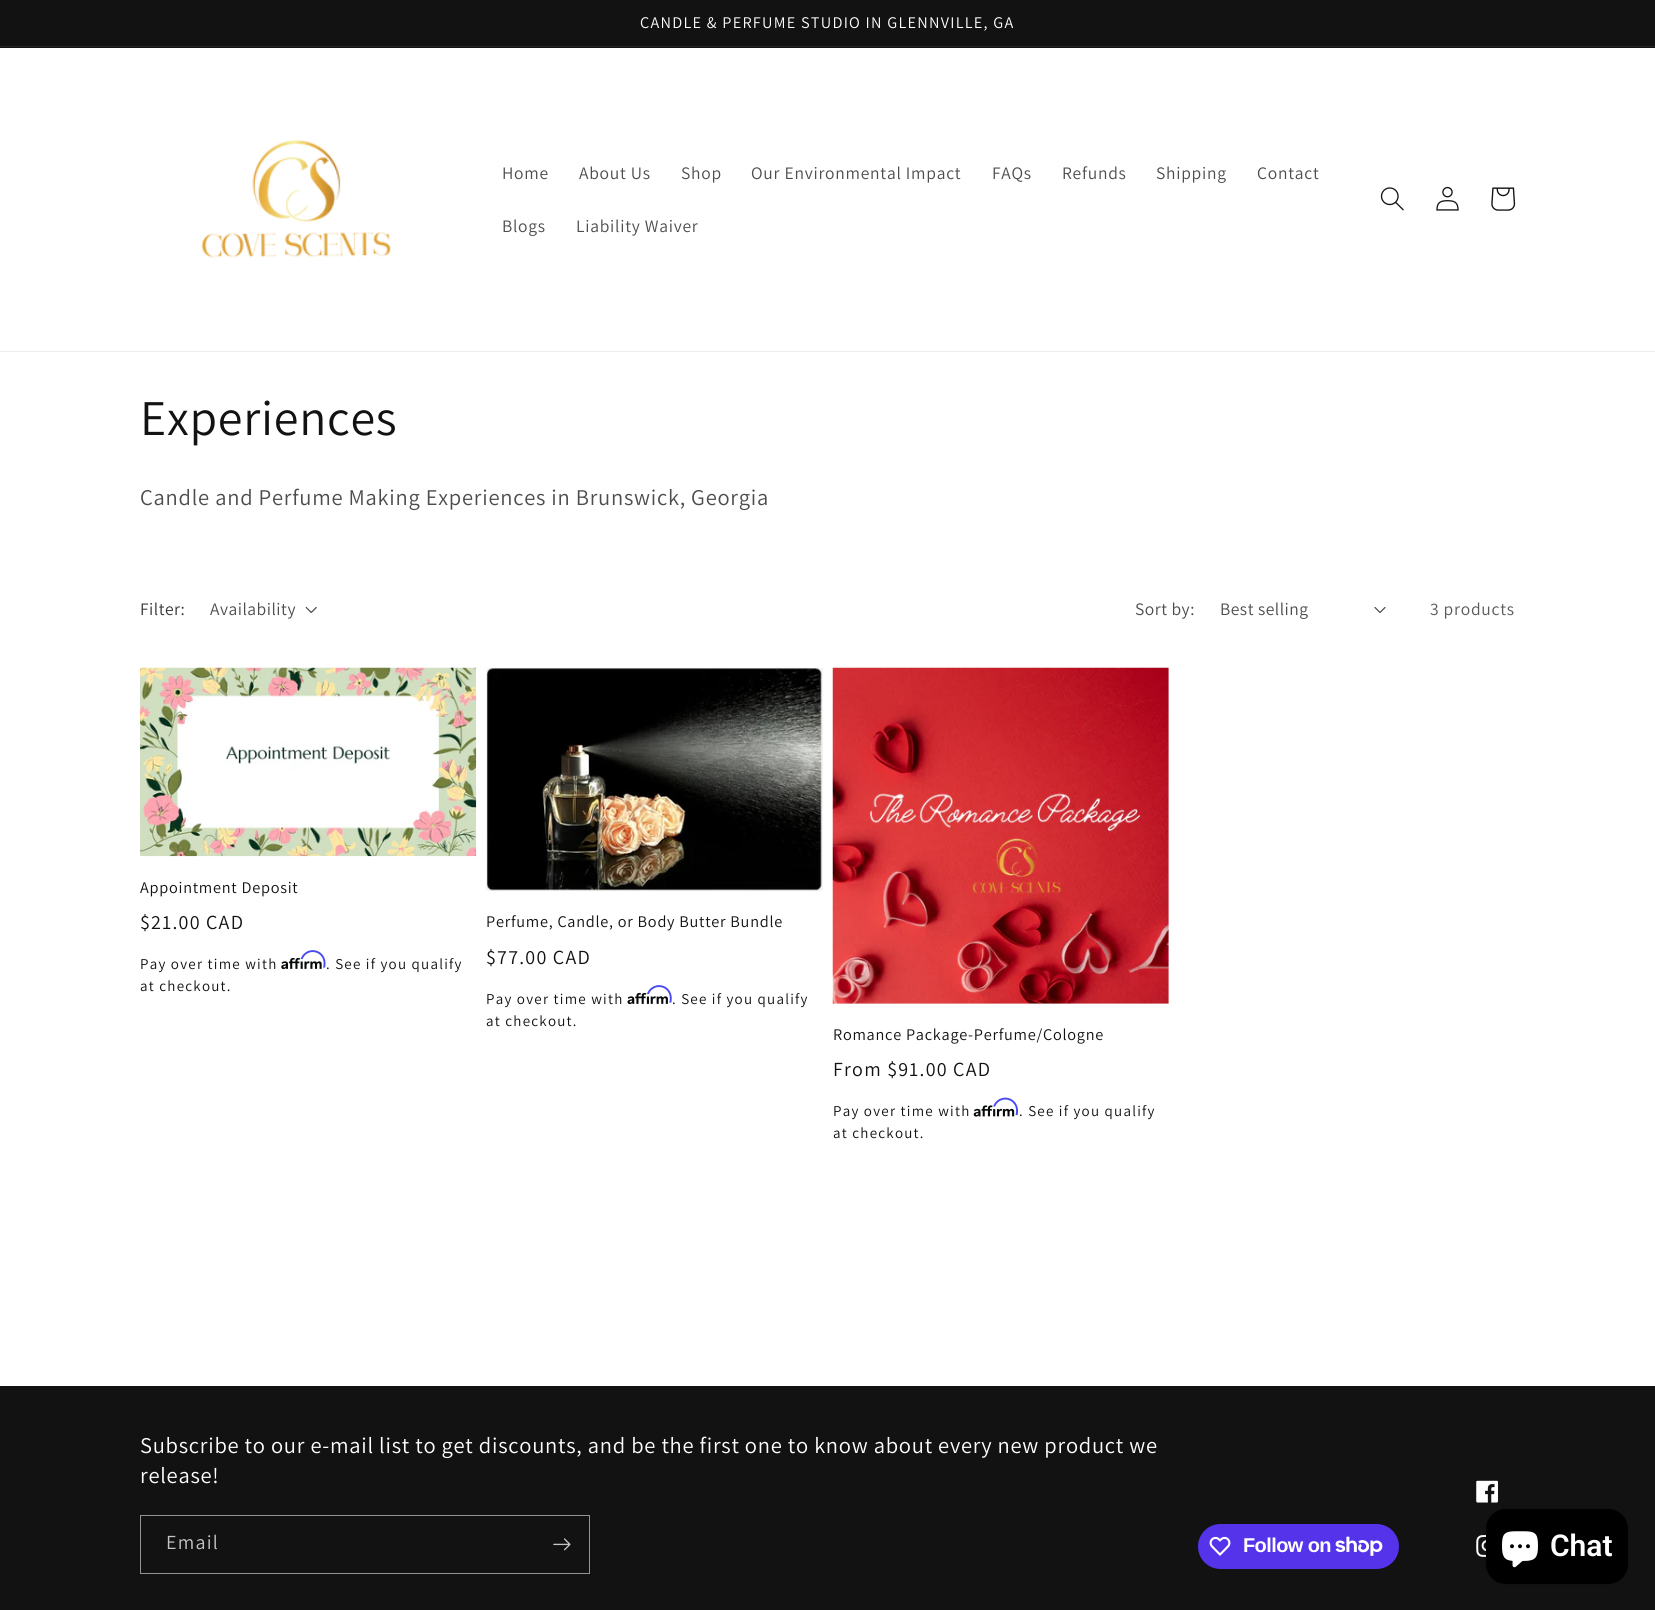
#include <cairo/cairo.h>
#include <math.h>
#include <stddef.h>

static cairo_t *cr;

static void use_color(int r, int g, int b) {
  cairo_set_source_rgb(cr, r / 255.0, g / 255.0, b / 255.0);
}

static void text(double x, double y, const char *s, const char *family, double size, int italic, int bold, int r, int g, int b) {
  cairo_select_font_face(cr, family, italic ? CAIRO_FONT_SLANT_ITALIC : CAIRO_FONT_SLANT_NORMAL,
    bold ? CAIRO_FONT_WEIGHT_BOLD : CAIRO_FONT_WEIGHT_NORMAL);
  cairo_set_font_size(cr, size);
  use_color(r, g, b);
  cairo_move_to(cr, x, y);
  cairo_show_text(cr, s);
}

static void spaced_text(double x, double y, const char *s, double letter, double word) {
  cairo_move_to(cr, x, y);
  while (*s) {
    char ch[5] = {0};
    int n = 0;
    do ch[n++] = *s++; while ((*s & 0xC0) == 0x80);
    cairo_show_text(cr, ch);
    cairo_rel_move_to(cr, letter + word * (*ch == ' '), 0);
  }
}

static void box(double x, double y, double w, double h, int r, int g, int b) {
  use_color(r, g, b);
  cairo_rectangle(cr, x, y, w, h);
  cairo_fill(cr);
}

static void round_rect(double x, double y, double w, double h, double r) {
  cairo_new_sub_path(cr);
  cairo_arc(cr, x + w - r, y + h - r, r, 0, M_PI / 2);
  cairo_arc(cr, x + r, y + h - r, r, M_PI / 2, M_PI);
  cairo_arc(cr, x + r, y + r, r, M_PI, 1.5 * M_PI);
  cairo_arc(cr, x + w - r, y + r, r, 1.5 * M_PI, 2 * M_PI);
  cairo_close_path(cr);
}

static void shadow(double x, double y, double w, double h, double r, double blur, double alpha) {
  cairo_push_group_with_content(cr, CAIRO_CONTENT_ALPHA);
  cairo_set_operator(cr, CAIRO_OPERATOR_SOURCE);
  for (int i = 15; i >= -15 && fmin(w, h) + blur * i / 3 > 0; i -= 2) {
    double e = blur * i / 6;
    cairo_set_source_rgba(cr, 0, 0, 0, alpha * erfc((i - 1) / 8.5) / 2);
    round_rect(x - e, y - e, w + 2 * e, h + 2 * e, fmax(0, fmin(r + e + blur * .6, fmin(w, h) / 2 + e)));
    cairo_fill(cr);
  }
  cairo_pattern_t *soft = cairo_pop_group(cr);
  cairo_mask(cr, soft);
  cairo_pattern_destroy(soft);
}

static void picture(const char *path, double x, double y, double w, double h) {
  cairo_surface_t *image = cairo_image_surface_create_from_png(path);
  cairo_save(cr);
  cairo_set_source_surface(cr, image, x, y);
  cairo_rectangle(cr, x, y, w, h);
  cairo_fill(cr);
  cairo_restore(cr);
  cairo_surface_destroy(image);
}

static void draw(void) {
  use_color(255, 255, 255);
  cairo_paint(cr);
  box(0, 0, 1655, 48, 18, 18, 18);
  box(0, 46, 1655, 1, 37, 37, 37);
  box(0, 351, 1655, 1, 236, 236, 236);
  picture("img_01.png", 201, 140, 190, 118);
  picture("img_02.png", 1380, 187, 24, 24);
  picture("img_03.png", 1436, 186, 23, 25);
  picture("img_04.png", 1491, 187, 25, 24);
  picture("img_05.png", 305, 606, 12, 8);
  picture("img_06.png", 1374, 607, 12, 6);
  picture("img_07.png", 140, 667, 337, 190);
  picture("img_09.png", 281, 957, 41, 13);
  picture("img_08.png", 300, 950, 26, 18);
  box(486, 668, 337, 223, 243, 243, 243);
  picture("img_10.png", 486, 667, 337, 224);
  picture("img_12.png", 627, 992, 41, 13);
  picture("img_11.png", 647, 985, 25, 18);
  box(833, 668, 336, 336, 243, 243, 243);
  picture("img_13.png", 832, 667, 337, 337);
  picture("img_15.png", 973, 1105, 42, 12);
  picture("img_14.png", 993, 1097, 25, 19);
  box(0, 1386, 1655, 224, 18, 18, 18);
  cairo_rectangle(cr, 140.5, 1515.5, 449, 58);
  use_color(148, 148, 148);
  cairo_set_line_width(cr, 1);
  cairo_stroke(cr);
  picture("img_16.png", 553, 1538, 18, 13);
  use_color(84, 51, 235);
  round_rect(1198, 1524, 201, 45, 22.5);
  cairo_fill(cr);
  picture("img_17.png", 1209, 1536, 22, 20);
  picture("img_18.png", 1335, 1536, 48, 20);
  picture("img_19.png", 1476, 1480, 22, 23);
  picture("img_20.png", 1476, 1535, 10, 22);
  use_color(0, 0, 0);
  shadow(1486, 1509, 142, 75, 20, 3, 0.15);
  use_color(0, 0, 0);
  round_rect(1486, 1509, 142, 75, 20);
  cairo_fill(cr);
  picture("img_21.png", 1502, 1531, 36, 37);
  cairo_select_font_face(cr, "Assistant", CAIRO_FONT_SLANT_NORMAL, CAIRO_FONT_WEIGHT_NORMAL);
  cairo_set_font_size(cr, 16.25);
  use_color(255, 255, 255);
  spaced_text(640, 28, "CANDLE & PERFUME STUDIO IN GLENNVILLE, GA", 1.25, 0);
  cairo_set_font_size(cr, 17.5);
  use_color(77, 77, 77);
  spaced_text(502, 179, "Home", 0.75, 0);
  spaced_text(579, 179, "About Us", 0.75, 0);
  spaced_text(681, 179, "Shop", 0.75, 0);
  spaced_text(751, 179, "Our Environmental Impact", 0.75, 0);
  spaced_text(992, 179, "FAQs", 0.75, 0);
  spaced_text(1062, 179, "Refunds", 0.75, 0);
  spaced_text(1156, 179, "Shipping", 0.75, 0);
  spaced_text(1257, 179, "Contact", 0.75, 0);
  spaced_text(502, 232, "Blogs", 0.75, 0);
  spaced_text(576, 232, "Liability Waiver", 0.75, 0);
  cairo_set_font_size(cr, 50);
  use_color(18, 18, 18);
  spaced_text(140, 435, "Experiences", 0.75, 0);
  cairo_set_font_size(cr, 22.5);
  use_color(77, 77, 77);
  spaced_text(140, 505, "Candle and Perfume Making Experiences in Brunswick, Georgia", 0.75, 0);
  cairo_set_font_size(cr, 17.5);
  use_color(54, 54, 54);
  spaced_text(140, 615, "Filter:", 0.5, 0);
  use_color(77, 77, 77);
  spaced_text(210, 615, "Availability", 0.5, 0);
  spaced_text(1135, 615, "Sort by:", 0.5, 0);
  spaced_text(1220, 615, "Best selling", 0.5, 0);
  use_color(89, 89, 89);
  spaced_text(1430, 615, "3 products", 0.75, 0);
  cairo_set_font_size(cr, 16.25);
  use_color(18, 18, 18);
  spaced_text(140, 893, "Appointment Deposit", 0.75, 0);
  cairo_set_font_size(cr, 20);
  spaced_text(140, 929, "$21.00 CAD", 1.25, 0);
  cairo_set_font_size(cr, 15);
  spaced_text(140, 969, "Pay over time with", 1.25, 0);
  spaced_text(326, 969, ". See if you qualify", 1.25, 0);
  spaced_text(140, 991, "at checkout.", 1.25, 0);
  cairo_set_font_size(cr, 16.25);
  spaced_text(486, 927, "Perfume, Candle, or Body Butter Bundle", 0.75, 0);
  cairo_set_font_size(cr, 20);
  spaced_text(486, 964, "$77.00 CAD", 1.25, 0);
  cairo_set_font_size(cr, 15);
  spaced_text(486, 1004, "Pay over time with", 1.25, 0);
  spaced_text(672, 1004, ". See if you qualify", 1.25, 0);
  spaced_text(486, 1026, "at checkout.", 1.25, 0);
  cairo_set_font_size(cr, 16.25);
  spaced_text(833, 1040, "Romance Package-Perfume/Cologne", 0.75, 0);
  cairo_set_font_size(cr, 20);
  spaced_text(833, 1076, "From $91.00 CAD", 1.25, 0);
  cairo_set_font_size(cr, 15);
  spaced_text(833, 1116, "Pay over time with", 1.25, 0);
  spaced_text(1019, 1116, ". See if you qualify", 1.25, 0);
  spaced_text(833, 1138, "at checkout.", 1.25, 0);
  cairo_set_font_size(cr, 22.5);
  use_color(255, 255, 255);
  spaced_text(140, 1453, "Subscribe to our e-mail list to get discounts, and be the first one to know about every new product we", 0.75, 0);
  spaced_text(140, 1483, "release!", 0.75, 0);
  cairo_set_font_size(cr, 20);
  use_color(196, 196, 196);
  spaced_text(166, 1549, "Email", 1.25, 0);
  cairo_select_font_face(cr, "Liberation Sans", CAIRO_FONT_SLANT_NORMAL, CAIRO_FONT_WEIGHT_BOLD);
  use_color(255, 255, 255);
  spaced_text(1243, 1552, "Follow on", -0.6, 0);
  text(1550, 1556, "Chat", "Roboto SemiBold", 30, 0, 0, 255, 255, 255);
}

int main(void) {
  cairo_surface_t *surface = cairo_image_surface_create(CAIRO_FORMAT_RGB24, 1655, 1610);
  cr = cairo_create(surface);
  cairo_font_options_t *options = cairo_font_options_create();
  cairo_font_options_set_hint_metrics(options, CAIRO_HINT_METRICS_OFF);
  cairo_font_options_set_hint_style(options, CAIRO_HINT_STYLE_NONE);
  cairo_set_font_options(cr, options);
  cairo_set_miter_limit(cr, 4);
  draw();
  cairo_surface_write_to_png(surface, "out.png");
  cairo_font_options_destroy(options);
  cairo_destroy(cr);
  cairo_surface_destroy(surface);
  return 0;
}
